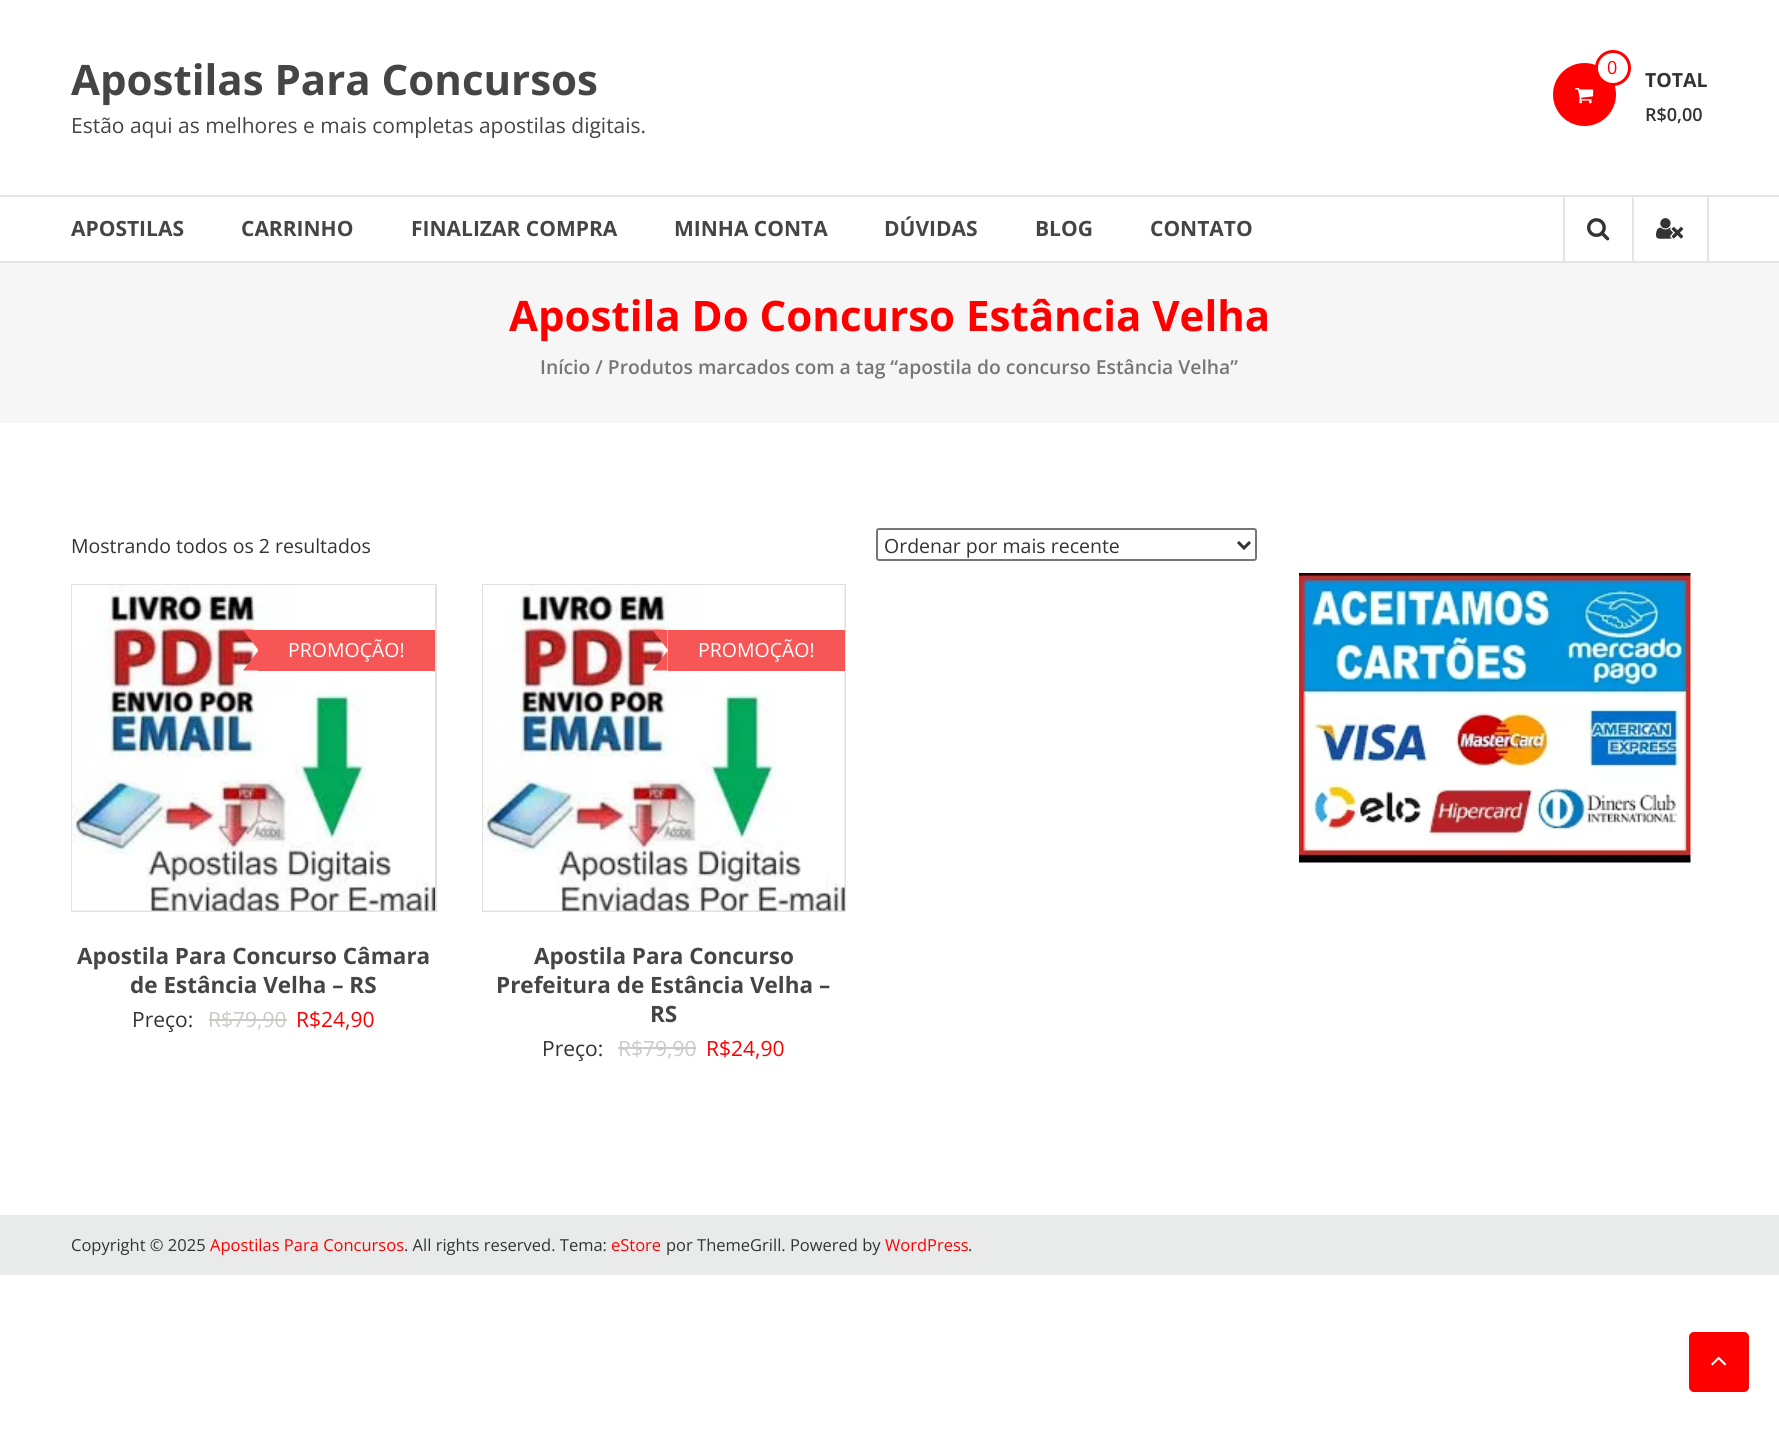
#include <cairo/cairo.h>
#include <math.h>
#include <stddef.h>

static cairo_t *cr;

static void use_color(int r, int g, int b) {
  cairo_set_source_rgb(cr, r / 255.0, g / 255.0, b / 255.0);
}

static void text(double x, double y, const char *s, const char *family, double size, int italic, int bold, int r, int g, int b) {
  cairo_select_font_face(cr, family, italic ? CAIRO_FONT_SLANT_ITALIC : CAIRO_FONT_SLANT_NORMAL,
    bold ? CAIRO_FONT_WEIGHT_BOLD : CAIRO_FONT_WEIGHT_NORMAL);
  cairo_set_font_size(cr, size);
  use_color(r, g, b);
  cairo_move_to(cr, x, y);
  cairo_show_text(cr, s);
}

static void box(double x, double y, double w, double h, int r, int g, int b) {
  use_color(r, g, b);
  cairo_rectangle(cr, x, y, w, h);
  cairo_fill(cr);
}

static void round_rect(double x, double y, double w, double h, double r) {
  cairo_new_sub_path(cr);
  cairo_arc(cr, x + w - r, y + h - r, r, 0, M_PI / 2);
  cairo_arc(cr, x + r, y + h - r, r, M_PI / 2, M_PI);
  cairo_arc(cr, x + r, y + r, r, M_PI, 1.5 * M_PI);
  cairo_arc(cr, x + w - r, y + r, r, 1.5 * M_PI, 2 * M_PI);
  cairo_close_path(cr);
}

static void picture(const char *path, double x, double y, double w, double h) {
  cairo_surface_t *image = cairo_image_surface_create_from_png(path);
  cairo_save(cr);
  cairo_set_source_surface(cr, image, x, y);
  cairo_rectangle(cr, x, y, w, h);
  cairo_fill(cr);
  cairo_restore(cr);
  cairo_surface_destroy(image);
}

static void draw(void) {
  use_color(255, 255, 255);
  cairo_paint(cr);
  use_color(255, 0, 0);
  cairo_arc(cr, 1584.5, 94.5, 31.5, 0, 2 * M_PI);
  cairo_fill(cr);
  use_color(255, 255, 255);
  cairo_arc(cr, 1613, 68, 16.5, 0, 2 * M_PI);
  cairo_fill_preserve(cr);
  use_color(255, 0, 0);
  cairo_set_line_width(cr, 3);
  cairo_stroke(cr);
  picture("img_01.png", 1575, 88, 19, 16);
  box(0, 195, 1779, 2, 229, 229, 229);
  box(0, 261, 1779, 2, 229, 229, 229);
  box(1563, 197, 2, 64, 229, 229, 229);
  picture("img_02.png", 1587, 218, 23, 23);
  box(1707, 197, 2, 64, 229, 229, 229);
  box(1632, 197, 2, 64, 229, 229, 229);
  picture("img_03.png", 1656, 218, 28, 21);
  box(0, 263, 1779, 160, 246, 246, 246);
  round_rect(877, 529, 379, 31, 2);
  use_color(118, 118, 118);
  cairo_set_line_width(cr, 2);
  cairo_stroke(cr);
  cairo_new_path(cr);
  cairo_move_to(cr, 1238, 542);
  cairo_line_to(cr, 1244, 548);
  cairo_line_to(cr, 1250, 542);
  use_color(51, 51, 51);
  cairo_set_line_width(cr, 3);
  cairo_stroke(cr);
  cairo_rectangle(cr, 72, 585, 364, 326);
  use_color(225, 225, 225);
  cairo_set_line_width(cr, 2);
  cairo_stroke(cr);
  picture("img_04.png", 72, 585, 363, 326);
  box(258, 630, 177, 41, 246, 86, 86);
  cairo_new_path(cr);
  cairo_move_to(cr, 258, 630);
  cairo_line_to(cr, 258, 649.5);
  cairo_line_to(cr, 243, 630);
  cairo_close_path(cr);
  cairo_move_to(cr, 258, 651);
  cairo_line_to(cr, 258, 670.5);
  cairo_line_to(cr, 243, 670.5);
  cairo_close_path(cr);
  cairo_fill(cr);
  box(209, 1019, 78, 2, 202, 203, 199);
  cairo_rectangle(cr, 483, 585, 362, 326);
  use_color(225, 225, 225);
  cairo_stroke(cr);
  picture("img_05.png", 483, 585, 362, 326);
  box(668, 630, 177, 41, 246, 86, 86);
  cairo_new_path(cr);
  cairo_move_to(cr, 667.5, 630);
  cairo_line_to(cr, 667.5, 649.5);
  cairo_line_to(cr, 652.5, 630);
  cairo_close_path(cr);
  cairo_move_to(cr, 667.5, 651);
  cairo_line_to(cr, 667.5, 670.5);
  cairo_line_to(cr, 652.5, 670.5);
  cairo_close_path(cr);
  cairo_fill(cr);
  box(618, 1047, 26, 2, 202, 203, 199);
  box(644, 1047, 52, 2, 202, 203, 199);
  picture("img_06.png", 1299, 573, 392, 290);
  box(0, 1215, 1779, 60, 233, 235, 235);
  use_color(255, 0, 0);
  round_rect(1689, 1332, 60, 60, 5);
  cairo_fill(cr);
  picture("img_07.png", 1711, 1356, 16, 10);
  text(71, 95, "Apostilas Para Concursos", "Open Sans", 42, 0, 1, 69, 69, 69);
  text(71, 133, "Estão aqui as melhores e mais completas apostilas digitais.", "Open Sans", 21, 0, 0, 69, 69, 69);
  text(1607, 74, "0", "Open Sans", 18, 0, 0, 255, 0, 0);
  text(1645, 87, "TOTAL", "Open Sans", 19.5, 0, 1, 51, 51, 51);
  text(1645, 121, "R$0,00", "Open Sans SemiBold", 18, 0, 0, 51, 51, 51);
  text(71, 236, "APOSTILAS", "Open Sans", 21, 0, 1, 69, 69, 69);
  text(241, 236, "CARRINHO", "Open Sans", 21, 0, 1, 69, 69, 69);
  text(411, 236, "FINALIZAR COMPRA", "Open Sans", 21, 0, 1, 69, 69, 69);
  text(674, 236, "MINHA CONTA", "Open Sans", 21, 0, 1, 69, 69, 69);
  text(884, 236, "DÚVIDAS", "Open Sans", 21, 0, 1, 69, 69, 69);
  text(1035, 236, "BLOG", "Open Sans", 21, 0, 1, 69, 69, 69);
  text(1150, 236, "CONTATO", "Open Sans", 21, 0, 1, 69, 69, 69);
  text(509, 331, "Apostila Do Concurso Estância Velha", "Open Sans", 42, 0, 1, 255, 0, 0);
  text(540, 374, "Início / Produtos marcados com a tag “apostila do concurso Estância Velha”", "Open Sans SemiBold", 19.3, 0, 0, 118, 118, 118);
  text(71, 553, "Mostrando todos os 2 resultados", "Open Sans", 19.5, 0, 0, 51, 51, 51);
  text(884, 553, "Ordenar por mais recente", "Open Sans", 19.5, 0, 0, 51, 51, 51);
  text(288, 657, "PROMOÇÃO!", "Open Sans", 19.5, 0, 0, 255, 255, 255);
  text(77, 964, "Apostila Para Concurso Câmara", "Open Sans", 22.5, 0, 1, 69, 69, 69);
  text(130, 993, "de Estância Velha – RS", "Open Sans", 22.5, 0, 1, 69, 69, 69);
  text(132, 1027, "Preço:", "Open Sans", 21, 0, 0, 51, 51, 51);
  text(208, 1027, "R$79,90", "Open Sans", 21, 0, 0, 202, 203, 199);
  text(296, 1027, "R$24,90", "Open Sans", 21, 0, 0, 255, 0, 0);
  text(698, 657, "PROMOÇÃO!", "Open Sans", 19.5, 0, 0, 255, 255, 255);
  text(534, 964, "Apostila Para Concurso", "Open Sans", 22.5, 0, 1, 69, 69, 69);
  text(496, 993, "Prefeitura de Estância Velha –", "Open Sans", 22.5, 0, 1, 69, 69, 69);
  text(650, 1022, "RS", "Open Sans", 22.5, 0, 1, 69, 69, 69);
  text(542, 1056, "Preço:", "Open Sans", 21, 0, 0, 51, 51, 51);
  text(618, 1056, "R$", "Open Sans", 21, 0, 0, 202, 203, 199);
  text(643, 1056, "79,90", "Open Sans", 21, 0, 0, 202, 203, 199);
  text(706, 1056, "R$24,90", "Open Sans", 21, 0, 0, 255, 0, 0);
  text(71, 1251, "Copyright © 2025", "Open Sans", 16.5, 0, 0, 51, 51, 51);
  text(210, 1251, "Apostilas Para Concursos", "Open Sans", 16.5, 0, 0, 255, 0, 0);
  text(404, 1251, ". All rights reserved. Tema:", "Open Sans", 16.5, 0, 0, 51, 51, 51);
  text(611, 1251, "eStore", "Open Sans", 16.5, 0, 0, 255, 0, 0);
  text(666, 1251, "por ThemeGrill. Powered by", "Open Sans", 16.5, 0, 0, 51, 51, 51);
  text(885, 1251, "WordPress", "Open Sans", 16.5, 0, 0, 255, 0, 0);
  text(968, 1251, ".", "Open Sans", 16.5, 0, 0, 51, 51, 51);
}

int main(void) {
  cairo_surface_t *surface = cairo_image_surface_create(CAIRO_FORMAT_RGB24, 1779, 1437);
  cr = cairo_create(surface);
  cairo_font_options_t *options = cairo_font_options_create();
  cairo_font_options_set_hint_metrics(options, CAIRO_HINT_METRICS_OFF);
  cairo_font_options_set_hint_style(options, CAIRO_HINT_STYLE_NONE);
  cairo_set_font_options(cr, options);
  cairo_set_miter_limit(cr, 4);
  draw();
  cairo_surface_write_to_png(surface, "out.png");
  cairo_font_options_destroy(options);
  cairo_destroy(cr);
  cairo_surface_destroy(surface);
  return 0;
}
